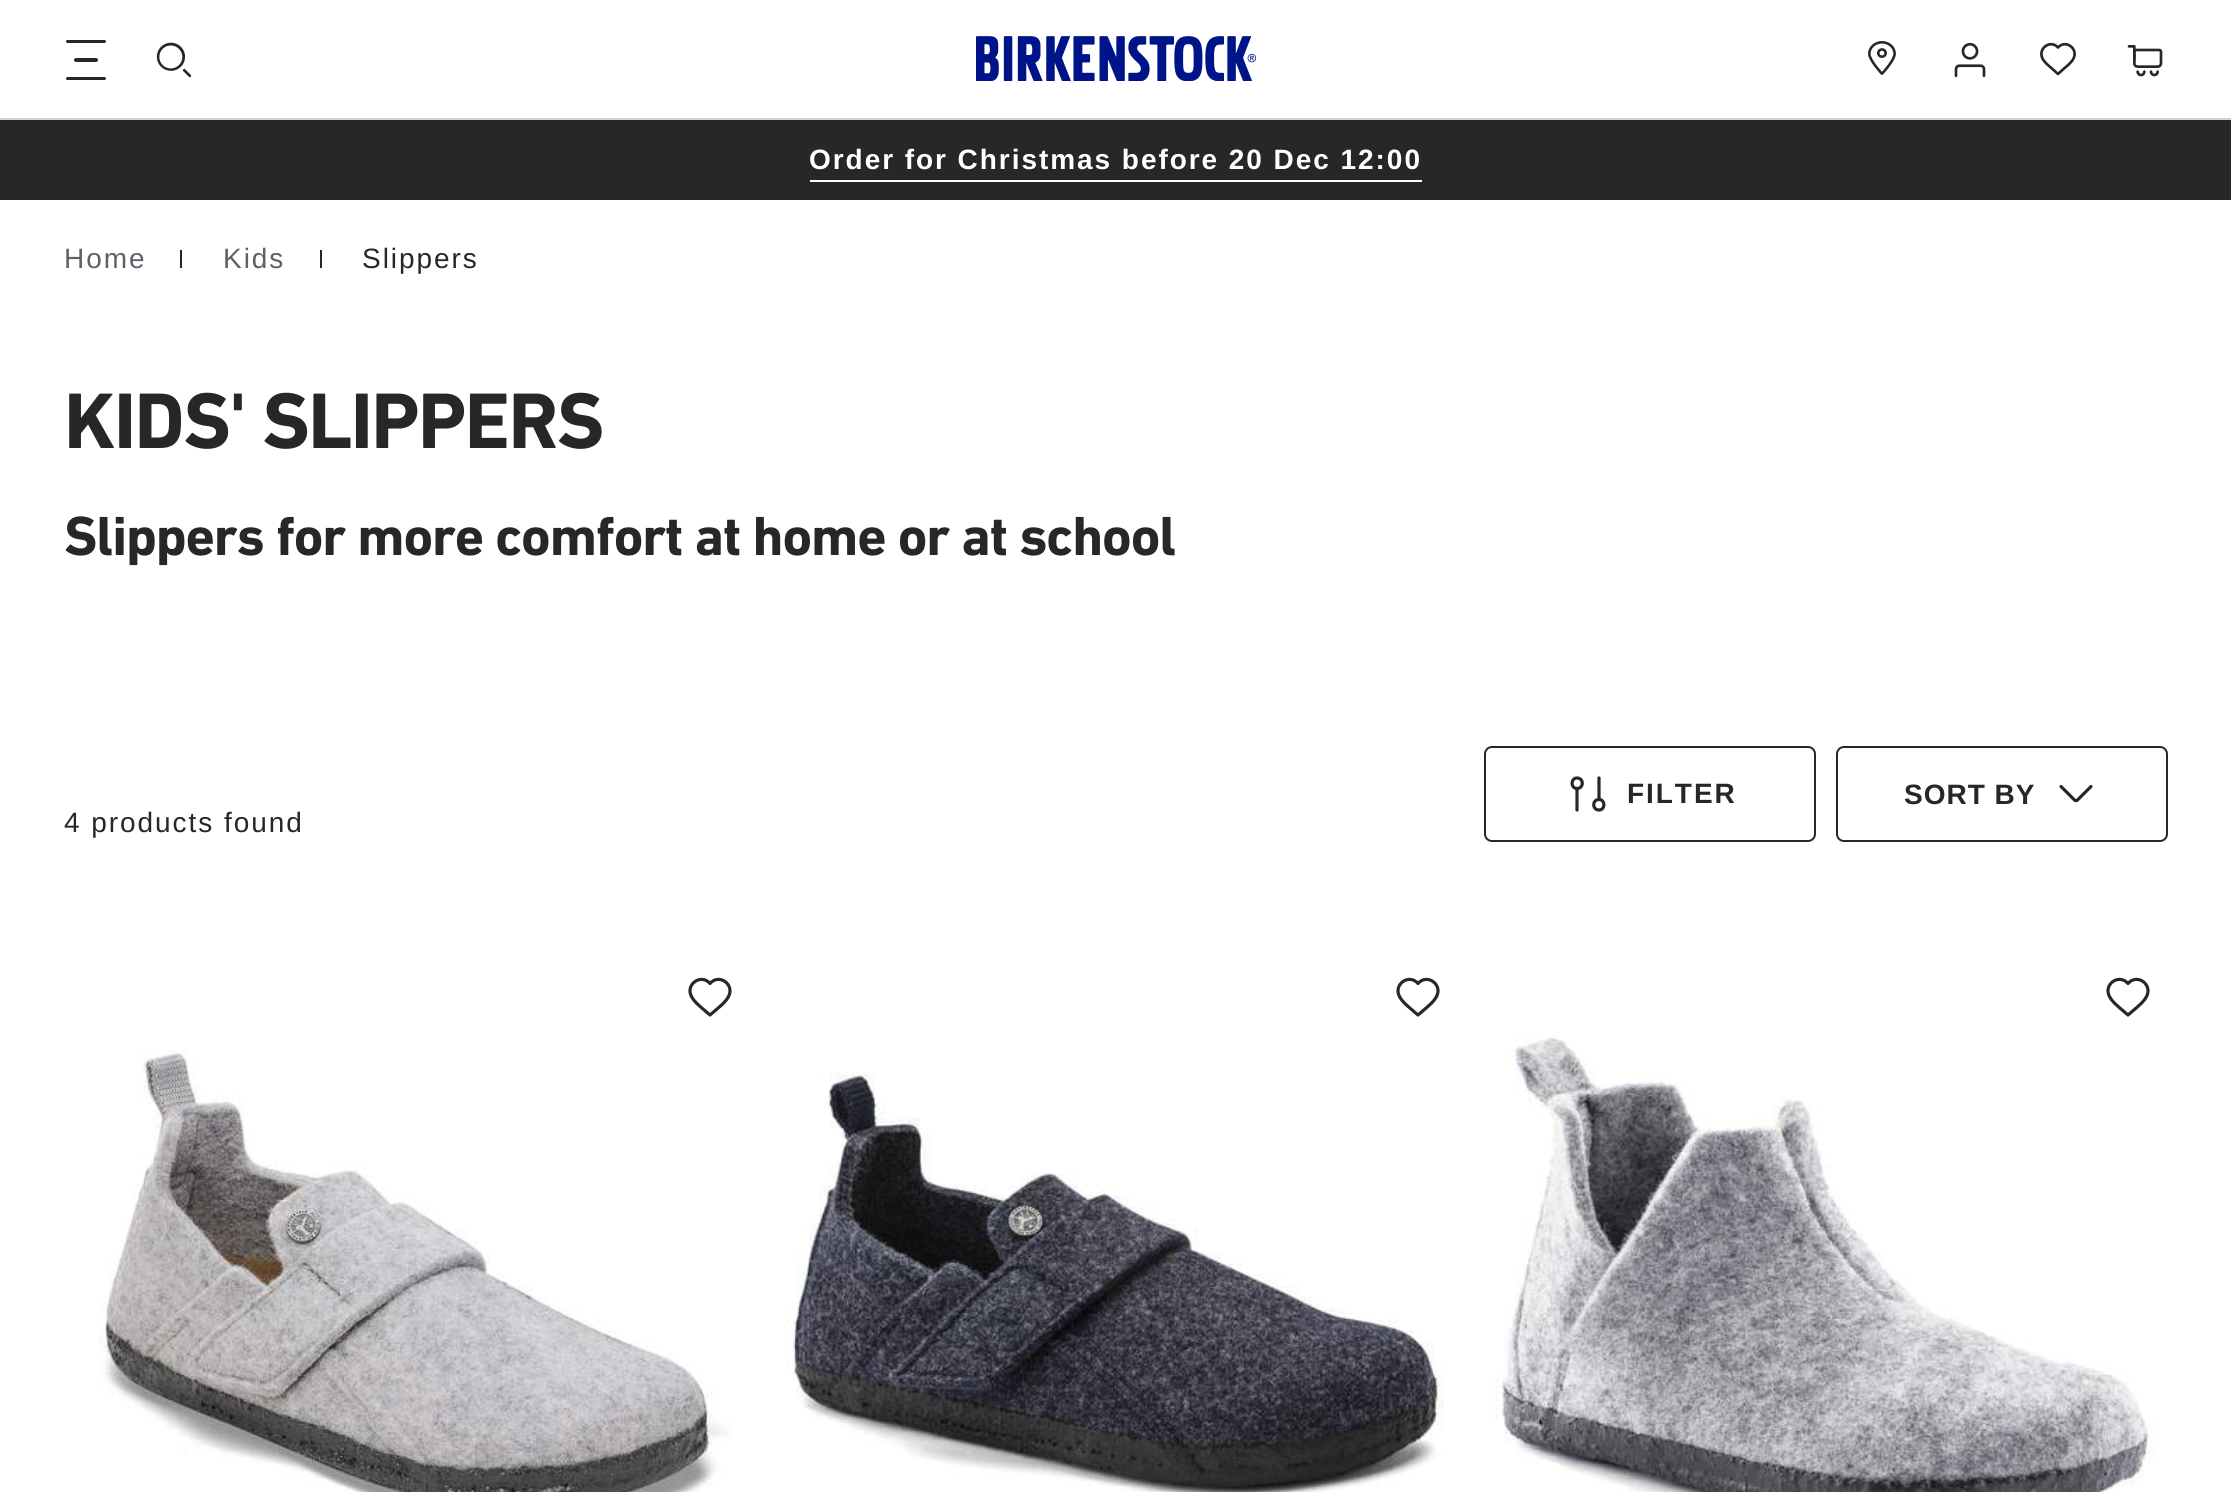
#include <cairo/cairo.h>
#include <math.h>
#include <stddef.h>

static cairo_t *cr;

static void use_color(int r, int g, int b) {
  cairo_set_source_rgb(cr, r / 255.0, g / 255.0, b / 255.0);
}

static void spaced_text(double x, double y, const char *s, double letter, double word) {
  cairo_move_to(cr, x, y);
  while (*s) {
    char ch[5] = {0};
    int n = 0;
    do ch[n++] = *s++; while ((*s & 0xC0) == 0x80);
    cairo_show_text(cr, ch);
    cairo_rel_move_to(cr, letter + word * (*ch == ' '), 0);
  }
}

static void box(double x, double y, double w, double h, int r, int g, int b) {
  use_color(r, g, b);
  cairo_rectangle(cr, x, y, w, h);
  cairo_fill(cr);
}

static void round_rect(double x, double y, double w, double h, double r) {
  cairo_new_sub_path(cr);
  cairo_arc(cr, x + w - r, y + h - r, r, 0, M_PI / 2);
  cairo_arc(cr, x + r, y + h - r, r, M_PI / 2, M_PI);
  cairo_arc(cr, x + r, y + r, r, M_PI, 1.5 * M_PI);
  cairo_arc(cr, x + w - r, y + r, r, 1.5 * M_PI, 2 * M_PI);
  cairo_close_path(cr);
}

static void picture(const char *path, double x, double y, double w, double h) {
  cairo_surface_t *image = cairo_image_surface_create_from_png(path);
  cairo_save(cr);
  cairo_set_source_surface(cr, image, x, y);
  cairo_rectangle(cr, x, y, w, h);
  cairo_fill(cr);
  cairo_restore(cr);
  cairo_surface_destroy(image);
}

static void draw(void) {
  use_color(255, 255, 255);
  cairo_paint(cr);
  box(0, 118, 2231, 2, 210, 209, 212);
  use_color(40, 39, 39);
  round_rect(66, 40, 40, 3, 1.5);
  cairo_fill(cr);
  round_rect(74, 58, 24, 4, 2);
  cairo_fill(cr);
  round_rect(66, 77, 40, 3, 1.5);
  cairo_fill(cr);
  picture("img_01.png", 156, 42, 36, 36);
  picture("img_02.png", 976, 36, 280, 45);
  picture("img_03.png", 1868, 41, 28, 34);
  picture("img_04.png", 1954, 42, 32, 36);
  cairo_new_path(cr);
  cairo_move_to(cr, 2058, 47.5);
  cairo_curve_to(cr, 2050.5, 39, 2037.5, 48.5, 2042.5, 58.5);
  cairo_curve_to(cr, 2044.5, 62.5, 2049, 66, 2052.5, 69);
  cairo_line_to(cr, 2058, 74);
  cairo_line_to(cr, 2063.5, 69);
  cairo_curve_to(cr, 2067, 66, 2071.5, 62.5, 2073.5, 58.5);
  cairo_curve_to(cr, 2078.5, 48.5, 2065.5, 39, 2058, 47.5);
  cairo_close_path(cr);
  cairo_set_line_width(cr, 2.7);
  cairo_set_line_cap(cr, CAIRO_LINE_CAP_ROUND);
  cairo_set_line_join(cr, CAIRO_LINE_JOIN_ROUND);
  cairo_stroke(cr);
  picture("img_05.png", 2127, 45, 36, 32);
  box(0, 120, 2231, 80, 40, 39, 39);
  box(810, 180, 612, 2, 255, 255, 255);
  box(180, 250, 2, 18, 40, 39, 39);
  box(320, 250, 2, 18, 40, 39, 39);
  round_rect(1485, 747, 330, 94, 7);
  cairo_set_line_width(cr, 2);
  cairo_set_line_cap(cr, CAIRO_LINE_CAP_BUTT);
  cairo_set_line_join(cr, CAIRO_LINE_JOIN_MITER);
  cairo_stroke(cr);
  cairo_new_path(cr);
  cairo_move_to(cr, 1577, 810);
  cairo_line_to(cr, 1577, 788.5);
  cairo_move_to(cr, 1577, 788.5);
  cairo_curve_to(cr, 1584, 788.5, 1584, 778, 1577, 778);
  cairo_curve_to(cr, 1570.5, 778, 1570.5, 788.5, 1577, 788.5);
  cairo_close_path(cr);
  cairo_move_to(cr, 1599, 799.5);
  cairo_line_to(cr, 1599, 778);
  cairo_move_to(cr, 1599, 799.5);
  cairo_curve_to(cr, 1605.5, 799.5, 1605.5, 810, 1599, 810);
  cairo_curve_to(cr, 1592, 810, 1592, 799.5, 1599, 799.5);
  cairo_close_path(cr);
  cairo_set_line_width(cr, 3.2);
  cairo_set_line_cap(cr, CAIRO_LINE_CAP_ROUND);
  cairo_set_line_join(cr, CAIRO_LINE_JOIN_ROUND);
  cairo_stroke(cr);
  round_rect(1837, 747, 330, 94, 7);
  cairo_set_line_width(cr, 2);
  cairo_set_line_cap(cr, CAIRO_LINE_CAP_BUTT);
  cairo_set_line_join(cr, CAIRO_LINE_JOIN_MITER);
  cairo_stroke(cr);
  picture("img_06.png", 2059, 784, 34, 19);
  cairo_new_path(cr);
  cairo_move_to(cr, 710, 983.5);
  cairo_curve_to(cr, 701, 973, 685, 984.5, 691.5, 996.5);
  cairo_curve_to(cr, 694, 1001.5, 699, 1005.5, 703, 1009);
  cairo_line_to(cr, 710, 1015);
  cairo_line_to(cr, 717, 1009);
  cairo_curve_to(cr, 721, 1005.5, 726, 1001.5, 728.5, 996.5);
  cairo_curve_to(cr, 735, 984.5, 719, 973, 710, 983.5);
  cairo_close_path(cr);
  cairo_set_line_width(cr, 3.2);
  cairo_set_line_cap(cr, CAIRO_LINE_CAP_ROUND);
  cairo_set_line_join(cr, CAIRO_LINE_JOIN_ROUND);
  cairo_stroke(cr);
  picture("img_07.png", 99, 1050, 633, 442);
  cairo_new_path(cr);
  cairo_move_to(cr, 1418, 983.5);
  cairo_curve_to(cr, 1409, 973, 1393, 984.5, 1399.5, 996.5);
  cairo_curve_to(cr, 1402, 1001.5, 1407, 1005.5, 1411, 1009);
  cairo_line_to(cr, 1418, 1015);
  cairo_line_to(cr, 1425, 1009);
  cairo_curve_to(cr, 1429, 1005.5, 1434, 1001.5, 1436.5, 996.5);
  cairo_curve_to(cr, 1443, 984.5, 1427, 973, 1418, 983.5);
  cairo_close_path(cr);
  cairo_stroke(cr);
  picture("img_08.png", 785, 1072, 659, 420);
  cairo_new_path(cr);
  cairo_move_to(cr, 2128, 983.5);
  cairo_curve_to(cr, 2119, 973, 2103, 984.5, 2109.5, 996.5);
  cairo_curve_to(cr, 2112, 1001.5, 2117, 1005.5, 2121, 1009);
  cairo_line_to(cr, 2128, 1015);
  cairo_line_to(cr, 2135, 1009);
  cairo_curve_to(cr, 2139, 1005.5, 2144, 1001.5, 2146.5, 996.5);
  cairo_curve_to(cr, 2153, 984.5, 2137, 973, 2128, 983.5);
  cairo_close_path(cr);
  cairo_stroke(cr);
  picture("img_09.png", 1494, 1037, 660, 455);
  cairo_select_font_face(cr, "Liberation Sans", CAIRO_FONT_SLANT_NORMAL, CAIRO_FONT_WEIGHT_BOLD);
  cairo_set_font_size(cr, 28);
  use_color(255, 255, 255);
  spaced_text(809, 169, "Order for Christmas before 20 Dec 12:00", 1.95, 0);
  cairo_select_font_face(cr, "Liberation Sans", CAIRO_FONT_SLANT_NORMAL, CAIRO_FONT_WEIGHT_NORMAL);
  use_color(96, 96, 106);
  spaced_text(64, 268, "Home", 1.95, 0);
  spaced_text(223, 268, "Kids", 1.95, 0);
  use_color(40, 39, 39);
  spaced_text(362, 268, "Slippers", 1.95, 0);
  cairo_select_font_face(cr, "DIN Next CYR", CAIRO_FONT_SLANT_NORMAL, CAIRO_FONT_WEIGHT_BOLD);
  cairo_set_font_size(cr, 80);
  spaced_text(64, 448, "KIDS' SLIPPERS", -1.6, 0);
  cairo_set_font_size(cr, 56);
  spaced_text(64, 555, "Slippers for more comfort at home or at school", -1.1, 0);
  cairo_select_font_face(cr, "Liberation Sans", CAIRO_FONT_SLANT_NORMAL, CAIRO_FONT_WEIGHT_BOLD);
  cairo_set_font_size(cr, 28);
  spaced_text(1627, 803, "FILTER", 1.95, 0);
  spaced_text(1904, 804, "SORT BY", 1, 0);
  cairo_select_font_face(cr, "Liberation Sans", CAIRO_FONT_SLANT_NORMAL, CAIRO_FONT_WEIGHT_NORMAL);
  spaced_text(64, 832, "4 products found", 1.95, 0);
}

int main(void) {
  cairo_surface_t *surface = cairo_image_surface_create(CAIRO_FORMAT_RGB24, 2231, 1492);
  cr = cairo_create(surface);
  cairo_font_options_t *options = cairo_font_options_create();
  cairo_font_options_set_hint_metrics(options, CAIRO_HINT_METRICS_OFF);
  cairo_font_options_set_hint_style(options, CAIRO_HINT_STYLE_NONE);
  cairo_set_font_options(cr, options);
  cairo_set_miter_limit(cr, 4);
  draw();
  cairo_surface_write_to_png(surface, "out.png");
  cairo_font_options_destroy(options);
  cairo_destroy(cr);
  cairo_surface_destroy(surface);
  return 0;
}
